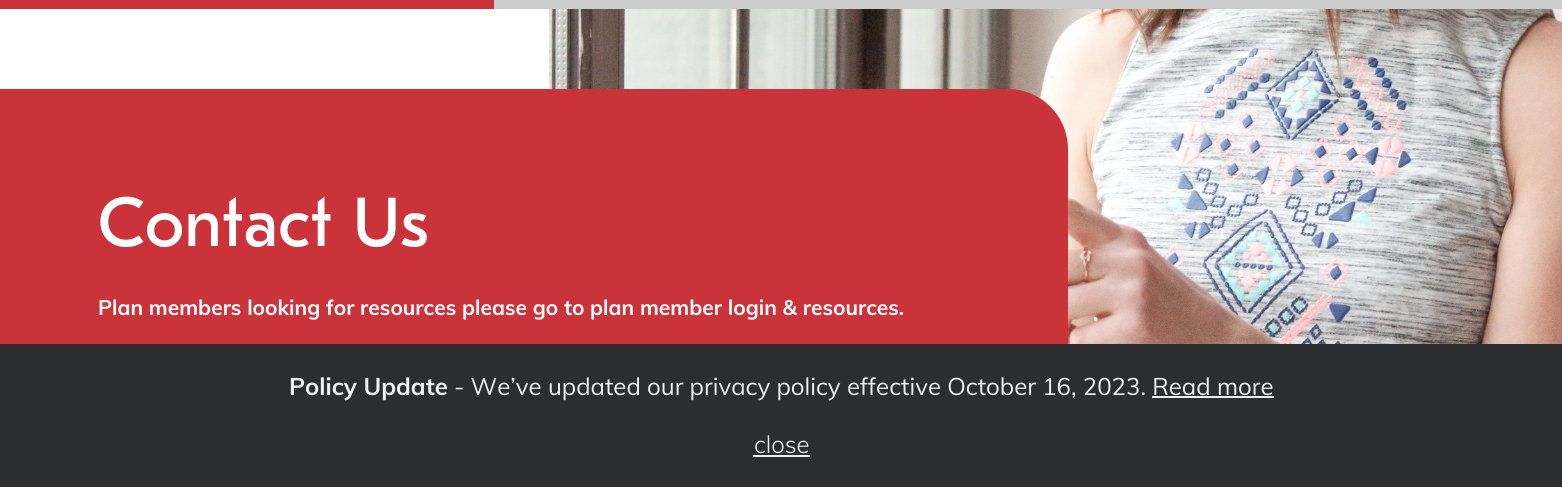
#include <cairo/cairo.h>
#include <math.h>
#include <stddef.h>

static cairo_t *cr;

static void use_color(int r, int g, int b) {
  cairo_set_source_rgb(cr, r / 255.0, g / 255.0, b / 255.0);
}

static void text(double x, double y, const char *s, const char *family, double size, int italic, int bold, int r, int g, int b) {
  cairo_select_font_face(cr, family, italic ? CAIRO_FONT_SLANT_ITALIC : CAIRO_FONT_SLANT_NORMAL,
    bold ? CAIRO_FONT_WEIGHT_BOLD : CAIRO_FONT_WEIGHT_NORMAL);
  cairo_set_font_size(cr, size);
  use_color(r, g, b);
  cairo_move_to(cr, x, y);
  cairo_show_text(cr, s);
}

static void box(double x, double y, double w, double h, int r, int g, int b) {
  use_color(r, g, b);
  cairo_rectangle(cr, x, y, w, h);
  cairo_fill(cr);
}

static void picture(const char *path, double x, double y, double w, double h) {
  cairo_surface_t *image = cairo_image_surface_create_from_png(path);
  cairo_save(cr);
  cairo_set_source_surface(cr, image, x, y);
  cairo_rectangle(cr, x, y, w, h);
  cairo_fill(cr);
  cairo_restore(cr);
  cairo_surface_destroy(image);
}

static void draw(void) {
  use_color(255, 255, 255);
  cairo_paint(cr);
  box(494, 0, 1068, 9, 204, 204, 204);
  box(0, 0, 494, 9, 203, 51, 59);
  picture("img_01.png", 549, 9, 1013, 335);
  cairo_new_path(cr);
  cairo_move_to(cr, 0, 89);
  cairo_line_to(cr, 1008, 89);
  cairo_curve_to(cr, 1041, 89, 1068, 116, 1068, 149);
  cairo_line_to(cr, 1068, 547);
  cairo_line_to(cr, 0, 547);
  cairo_close_path(cr);
  cairo_fill(cr);
  box(0, 344, 1562, 143, 44, 45, 49);
  box(1152, 396, 122, 2, 239, 239, 239);
  box(753, 455, 57, 2, 239, 239, 239);
  text(98, 246, "Contact Us", "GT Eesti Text", 69, 0, 0, 255, 255, 255);
  text(98, 315, "Plan members looking for resources please go to plan member login & resources.", "Muli", 21, 0, 1, 255, 255, 255);
  text(289, 395, "Policy Update", "Muli", 24, 0, 1, 239, 239, 239);
  text(454, 395, "- We’ve updated our privacy policy effective October 16, 2023. Read more", "Muli", 24, 0, 0, 239, 239, 239);
  text(754, 453, "close", "Muli Light", 24, 0, 0, 239, 239, 239);
}

int main(void) {
  cairo_surface_t *surface = cairo_image_surface_create(CAIRO_FORMAT_RGB24, 1562, 487);
  cr = cairo_create(surface);
  cairo_font_options_t *options = cairo_font_options_create();
  cairo_font_options_set_hint_metrics(options, CAIRO_HINT_METRICS_OFF);
  cairo_font_options_set_hint_style(options, CAIRO_HINT_STYLE_NONE);
  cairo_set_font_options(cr, options);
  cairo_set_miter_limit(cr, 4);
  draw();
  cairo_surface_write_to_png(surface, "out.png");
  cairo_font_options_destroy(options);
  cairo_destroy(cr);
  cairo_surface_destroy(surface);
  return 0;
}
